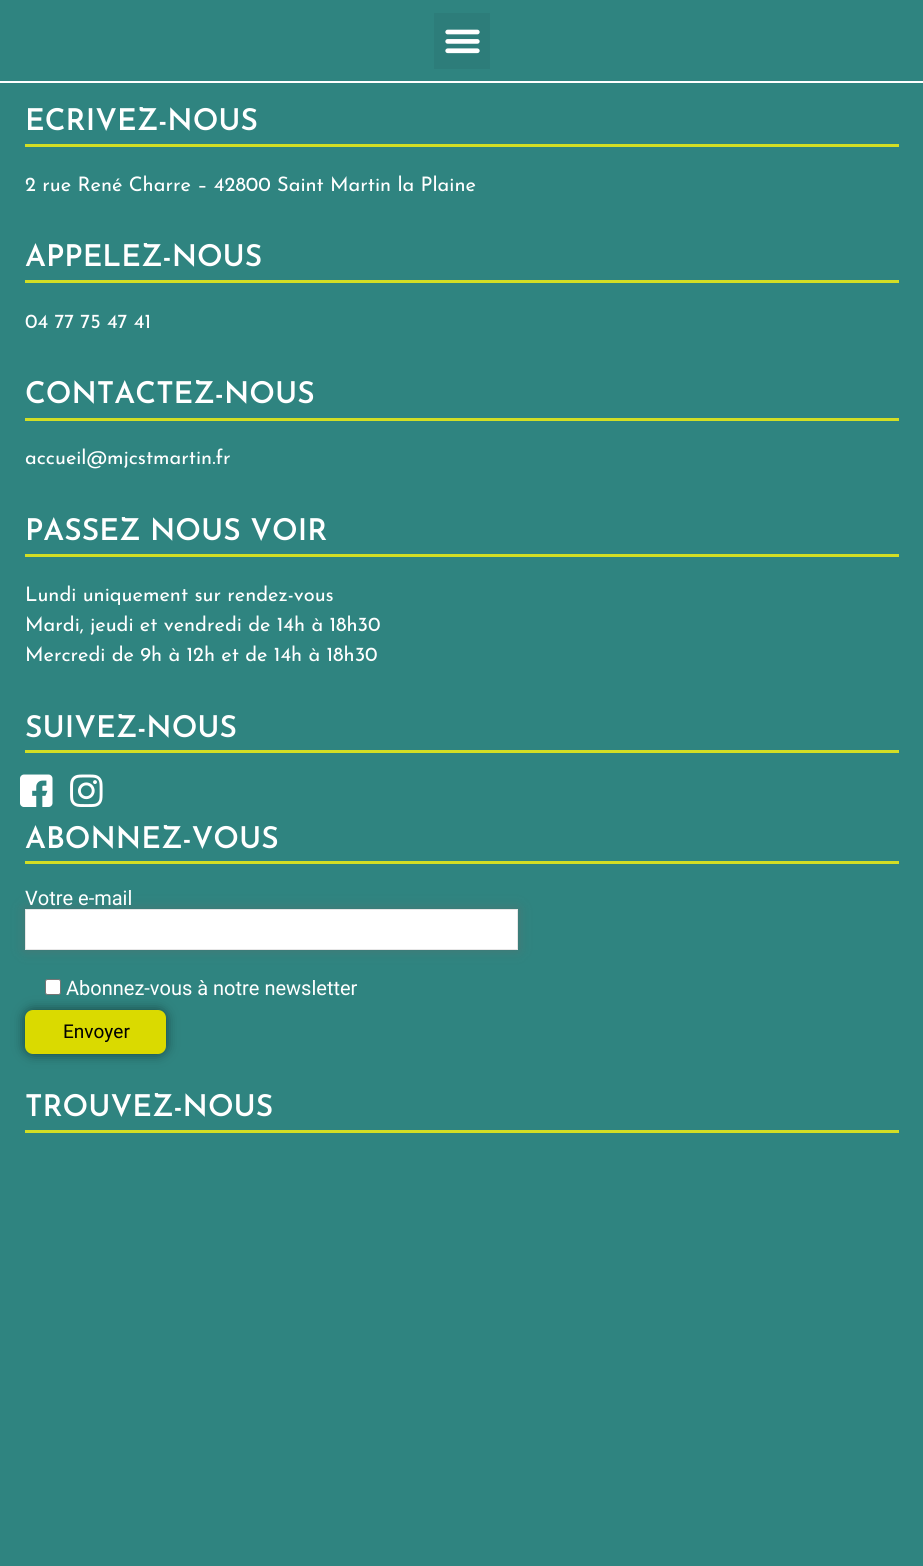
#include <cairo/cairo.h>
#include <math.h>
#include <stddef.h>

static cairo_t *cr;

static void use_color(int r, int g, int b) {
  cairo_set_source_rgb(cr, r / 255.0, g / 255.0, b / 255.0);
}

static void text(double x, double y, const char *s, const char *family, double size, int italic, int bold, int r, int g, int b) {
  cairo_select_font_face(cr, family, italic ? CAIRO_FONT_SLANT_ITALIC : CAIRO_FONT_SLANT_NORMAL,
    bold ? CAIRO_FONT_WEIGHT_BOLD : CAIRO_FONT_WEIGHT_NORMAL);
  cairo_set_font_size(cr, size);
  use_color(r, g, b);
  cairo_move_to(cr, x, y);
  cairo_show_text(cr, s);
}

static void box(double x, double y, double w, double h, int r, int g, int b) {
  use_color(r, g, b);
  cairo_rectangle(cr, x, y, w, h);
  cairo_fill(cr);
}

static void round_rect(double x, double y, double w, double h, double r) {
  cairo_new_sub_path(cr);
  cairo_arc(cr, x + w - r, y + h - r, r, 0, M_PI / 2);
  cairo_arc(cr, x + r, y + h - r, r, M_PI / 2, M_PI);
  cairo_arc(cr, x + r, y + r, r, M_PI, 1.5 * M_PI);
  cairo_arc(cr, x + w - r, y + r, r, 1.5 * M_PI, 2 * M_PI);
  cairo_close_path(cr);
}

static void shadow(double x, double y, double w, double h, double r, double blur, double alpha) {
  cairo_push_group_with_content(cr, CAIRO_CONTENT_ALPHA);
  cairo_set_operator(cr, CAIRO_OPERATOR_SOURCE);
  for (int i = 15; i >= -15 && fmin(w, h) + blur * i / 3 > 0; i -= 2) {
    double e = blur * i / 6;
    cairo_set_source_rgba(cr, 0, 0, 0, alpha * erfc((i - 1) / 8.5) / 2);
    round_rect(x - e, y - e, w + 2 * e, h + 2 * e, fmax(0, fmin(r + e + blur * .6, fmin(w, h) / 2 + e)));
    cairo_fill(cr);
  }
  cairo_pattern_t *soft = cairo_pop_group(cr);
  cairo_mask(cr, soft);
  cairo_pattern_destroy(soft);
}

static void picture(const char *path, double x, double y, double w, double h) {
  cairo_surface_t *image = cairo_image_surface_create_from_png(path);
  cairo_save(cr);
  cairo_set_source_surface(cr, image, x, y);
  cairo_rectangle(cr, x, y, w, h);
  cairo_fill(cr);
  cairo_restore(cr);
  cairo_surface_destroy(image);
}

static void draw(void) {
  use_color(255, 255, 255);
  cairo_paint(cr);
  box(0, 0, 923, 81, 47, 132, 128);
  box(434, 13, 56, 56, 45, 125, 122);
  picture("img_01.png", 445, 29, 35, 25);
  box(0, 83, 923, 1483, 47, 132, 128);
  box(25, 144, 874, 3, 210, 222, 36);
  box(25, 280, 874, 3, 210, 222, 36);
  box(25, 418, 874, 3, 210, 222, 36);
  box(25, 554, 874, 3, 210, 222, 36);
  box(25, 750, 874, 3, 210, 222, 36);
  picture("img_02.png", 20, 774, 33, 33);
  picture("img_03.png", 70, 774, 33, 33);
  box(25, 861, 874, 3, 210, 222, 36);
  use_color(101, 101, 101);
  shadow(25, 909, 493, 41, 0, 6, 0.5);
  use_color(255, 255, 255);
  cairo_rectangle(cr, 25.5, 909.5, 492, 40);
  cairo_fill_preserve(cr);
  use_color(231, 231, 231);
  cairo_set_line_width(cr, 1);
  cairo_stroke(cr);
  use_color(0, 0, 0);
  shadow(25, 1010, 141, 44, 8, 6, 0.5);
  use_color(255, 255, 255);
  round_rect(45.5, 979.5, 15, 15, 2);
  cairo_fill_preserve(cr);
  use_color(118, 118, 118);
  cairo_stroke(cr);
  use_color(218, 218, 0);
  round_rect(25, 1010, 141, 44, 8);
  cairo_fill(cr);
  box(25, 1130, 874, 3, 210, 222, 36);
  text(25, 130, "ECRIVEZ-NOUS", "Josefin Sans SemiBold", 30, 0, 0, 255, 255, 255);
  text(25, 191, "2 rue René Charre – 42800 Saint Martin la Plaine", "Josefin Sans", 20, 0, 0, 255, 255, 255);
  text(25, 266, "APPELEZ-NOUS", "Josefin Sans SemiBold", 30, 0, 0, 255, 255, 255);
  text(25, 328, "04 77 75 47 41", "Josefin Sans", 20, 0, 0, 255, 255, 255);
  text(25, 403, "CONTACTEZ-NOUS", "Josefin Sans SemiBold", 30, 0, 0, 255, 255, 255);
  text(25, 464, "accueil@mjcstmartin.fr", "Josefin Sans", 20, 0, 0, 255, 255, 255);
  text(25, 540, "PASSEZ NOUS VOIR", "Josefin Sans SemiBold", 30, 0, 0, 255, 255, 255);
  text(25, 601, "Lundi uniquement sur rendez-vous", "Josefin Sans", 20, 0, 0, 255, 255, 255);
  text(25, 631, "Mardi, jeudi et vendredi de 14h à 18h30", "Josefin Sans", 20, 0, 0, 255, 255, 255);
  text(25, 661, "Mercredi de 9h à 12h et de 14h à 18h30", "Josefin Sans", 20, 0, 0, 255, 255, 255);
  text(25, 737, "SUIVEZ-NOUS", "Josefin Sans SemiBold", 30, 0, 0, 255, 255, 255);
  text(25, 848, "ABONNEZ-VOUS", "Josefin Sans SemiBold", 30, 0, 0, 255, 255, 255);
  text(25, 905, "Votre e-mail", "Roboto", 20, 0, 0, 255, 255, 255);
  text(66, 995, "Abonnez-vous à notre newsletter", "Roboto", 20, 0, 0, 255, 255, 255);
  text(63, 1038, "Envoyer", "Roboto", 19, 0, 0, 0, 0, 0);
  text(25, 1116, "TROUVEZ-NOUS", "Josefin Sans SemiBold", 30, 0, 0, 255, 255, 255);
}

int main(void) {
  cairo_surface_t *surface = cairo_image_surface_create(CAIRO_FORMAT_RGB24, 923, 1566);
  cr = cairo_create(surface);
  cairo_font_options_t *options = cairo_font_options_create();
  cairo_font_options_set_hint_metrics(options, CAIRO_HINT_METRICS_OFF);
  cairo_font_options_set_hint_style(options, CAIRO_HINT_STYLE_NONE);
  cairo_set_font_options(cr, options);
  cairo_set_miter_limit(cr, 4);
  draw();
  cairo_surface_write_to_png(surface, "out.png");
  cairo_font_options_destroy(options);
  cairo_destroy(cr);
  cairo_surface_destroy(surface);
  return 0;
}
